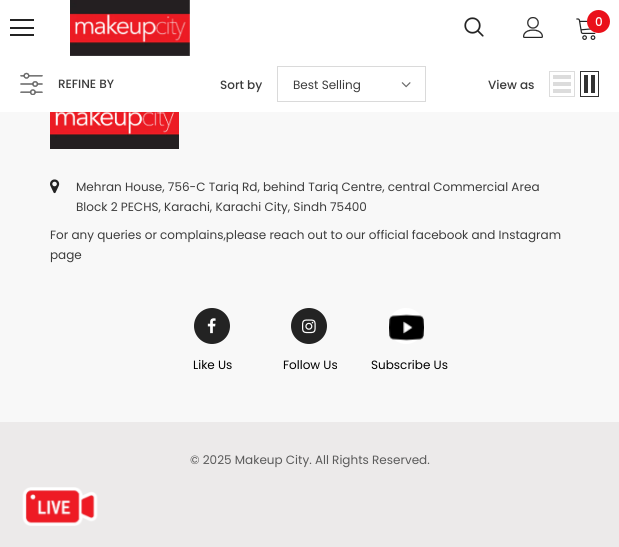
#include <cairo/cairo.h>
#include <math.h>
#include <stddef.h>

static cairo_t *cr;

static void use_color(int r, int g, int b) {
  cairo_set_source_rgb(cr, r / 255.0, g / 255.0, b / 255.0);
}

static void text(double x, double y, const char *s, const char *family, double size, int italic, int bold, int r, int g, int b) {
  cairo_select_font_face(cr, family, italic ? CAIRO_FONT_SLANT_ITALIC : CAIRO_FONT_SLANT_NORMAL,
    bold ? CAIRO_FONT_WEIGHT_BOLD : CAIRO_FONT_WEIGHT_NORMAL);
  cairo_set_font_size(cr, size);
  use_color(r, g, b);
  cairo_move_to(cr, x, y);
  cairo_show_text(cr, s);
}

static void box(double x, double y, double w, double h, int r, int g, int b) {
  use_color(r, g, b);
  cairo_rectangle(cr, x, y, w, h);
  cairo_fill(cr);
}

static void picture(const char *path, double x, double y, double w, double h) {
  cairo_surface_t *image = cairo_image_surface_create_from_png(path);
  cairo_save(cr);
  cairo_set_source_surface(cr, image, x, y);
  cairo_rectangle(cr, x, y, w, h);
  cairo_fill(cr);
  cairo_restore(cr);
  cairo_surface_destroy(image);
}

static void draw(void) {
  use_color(248, 248, 248);
  cairo_paint(cr);
  box(0, 0, 619, 112, 255, 255, 255);
  box(10, 19, 24, 2, 35, 35, 35);
  box(10, 27, 24, 2, 35, 35, 35);
  box(10, 34, 24, 2, 35, 35, 35);
  picture("img_01.png", 70, 0, 120, 56);
  picture("img_02.png", 464, 17, 20, 20);
  picture("img_03.png", 523, 17, 20, 21);
  picture("img_04.png", 576, 18, 20, 22);
  use_color(234, 16, 26);
  cairo_arc(cr, 598.5, 21.5, 11.5, 0, 2 * M_PI);
  cairo_fill(cr);
  picture("img_05.png", 20, 72, 23, 23);
  cairo_rectangle(cr, 277.5, 66.5, 148, 35);
  use_color(218, 218, 218);
  cairo_set_line_width(cr, 1);
  cairo_stroke(cr);
  picture("img_06.png", 401, 82, 10, 6);
  cairo_rectangle(cr, 549.5, 71.5, 25, 25);
  use_color(220, 220, 220);
  cairo_stroke(cr);
  box(553, 89, 18, 4, 220, 220, 220);
  box(553, 82, 18, 4, 220, 220, 220);
  box(553, 75, 18, 4, 220, 220, 220);
  cairo_rectangle(cr, 580.5, 71.5, 18, 25);
  use_color(50, 50, 50);
  cairo_stroke(cr);
  box(591, 75, 4, 18, 50, 50, 50);
  box(584, 75, 4, 18, 50, 50, 50);
  picture("img_07.png", 50, 112, 129, 37);
  picture("img_08.png", 50, 179, 10, 15);
  use_color(35, 35, 35);
  cairo_arc(cr, 212, 326, 18, 0, 2 * M_PI);
  cairo_fill(cr);
  picture("img_09.png", 207, 318, 9, 16);
  cairo_arc(cr, 309, 326, 18, 0, 2 * M_PI);
  cairo_fill(cr);
  picture("img_10.png", 302, 319, 14, 15);
  use_color(255, 255, 255);
  cairo_arc(cr, 406, 326, 18, 0, 2 * M_PI);
  cairo_fill(cr);
  picture("img_11.png", 389, 314, 35, 27);
  box(0, 422, 619, 125, 236, 234, 234);
  picture("img_12.png", 22, 487, 76, 39);
  text(595, 26, "0", "Poppins Medium", 12, 0, 0, 255, 255, 255);
  text(58, 88, "REFINE BY", "Poppins Medium", 12, 0, 0, 60, 60, 60);
  text(220, 89, "Sort by", "Poppins Medium", 12, 0, 0, 60, 60, 60);
  text(293, 89, "Best Selling", "Poppins", 12, 0, 0, 60, 60, 60);
  text(488, 89, "View as", "Poppins Medium", 12, 0, 0, 60, 60, 60);
  text(76, 191, "Mehran House, 756-C Tariq Rd, behind Tariq Centre, central Commercial Area", "Poppins", 12, 0, 0, 60, 60, 60);
  text(76, 211, "Block 2 PECHS, Karachi, Karachi City, Sindh 75400", "Poppins", 12, 0, 0, 60, 60, 60);
  text(50, 239, "For any queries or complains,please reach out to our official facebook and Instagram", "Poppins", 12, 0, 0, 60, 60, 60);
  text(50, 259, "page", "Poppins", 12, 0, 0, 60, 60, 60);
  text(193, 369, "Like Us", "Poppins", 12, 0, 0, 0, 0, 0);
  text(283, 369, "Follow Us", "Poppins", 12, 0, 0, 0, 0, 0);
  text(371, 369, "Subscribe Us", "Poppins", 12, 0, 0, 0, 0, 0);
  text(190, 464, "© 2025 Makeup City. All Rights Reserved.", "Poppins", 12, 0, 0, 90, 90, 90);
}

int main(void) {
  cairo_surface_t *surface = cairo_image_surface_create(CAIRO_FORMAT_RGB24, 619, 547);
  cr = cairo_create(surface);
  cairo_font_options_t *options = cairo_font_options_create();
  cairo_font_options_set_hint_metrics(options, CAIRO_HINT_METRICS_OFF);
  cairo_font_options_set_hint_style(options, CAIRO_HINT_STYLE_NONE);
  cairo_set_font_options(cr, options);
  cairo_set_miter_limit(cr, 4);
  draw();
  cairo_surface_write_to_png(surface, "out.png");
  cairo_font_options_destroy(options);
  cairo_destroy(cr);
  cairo_surface_destroy(surface);
  return 0;
}
